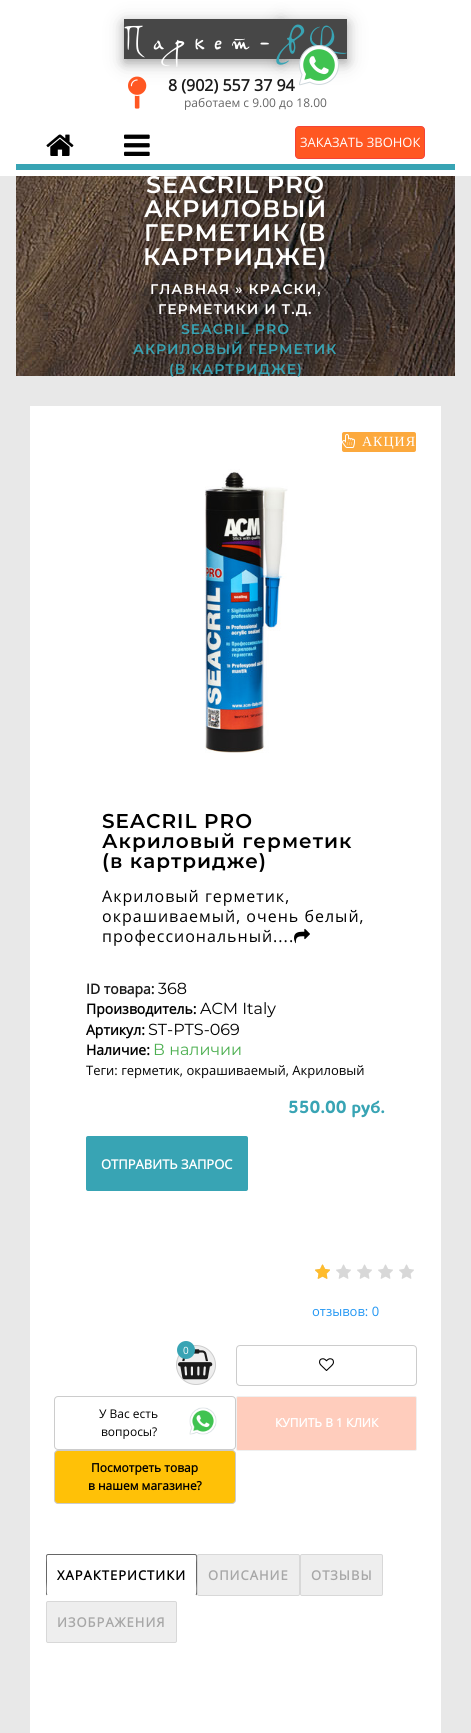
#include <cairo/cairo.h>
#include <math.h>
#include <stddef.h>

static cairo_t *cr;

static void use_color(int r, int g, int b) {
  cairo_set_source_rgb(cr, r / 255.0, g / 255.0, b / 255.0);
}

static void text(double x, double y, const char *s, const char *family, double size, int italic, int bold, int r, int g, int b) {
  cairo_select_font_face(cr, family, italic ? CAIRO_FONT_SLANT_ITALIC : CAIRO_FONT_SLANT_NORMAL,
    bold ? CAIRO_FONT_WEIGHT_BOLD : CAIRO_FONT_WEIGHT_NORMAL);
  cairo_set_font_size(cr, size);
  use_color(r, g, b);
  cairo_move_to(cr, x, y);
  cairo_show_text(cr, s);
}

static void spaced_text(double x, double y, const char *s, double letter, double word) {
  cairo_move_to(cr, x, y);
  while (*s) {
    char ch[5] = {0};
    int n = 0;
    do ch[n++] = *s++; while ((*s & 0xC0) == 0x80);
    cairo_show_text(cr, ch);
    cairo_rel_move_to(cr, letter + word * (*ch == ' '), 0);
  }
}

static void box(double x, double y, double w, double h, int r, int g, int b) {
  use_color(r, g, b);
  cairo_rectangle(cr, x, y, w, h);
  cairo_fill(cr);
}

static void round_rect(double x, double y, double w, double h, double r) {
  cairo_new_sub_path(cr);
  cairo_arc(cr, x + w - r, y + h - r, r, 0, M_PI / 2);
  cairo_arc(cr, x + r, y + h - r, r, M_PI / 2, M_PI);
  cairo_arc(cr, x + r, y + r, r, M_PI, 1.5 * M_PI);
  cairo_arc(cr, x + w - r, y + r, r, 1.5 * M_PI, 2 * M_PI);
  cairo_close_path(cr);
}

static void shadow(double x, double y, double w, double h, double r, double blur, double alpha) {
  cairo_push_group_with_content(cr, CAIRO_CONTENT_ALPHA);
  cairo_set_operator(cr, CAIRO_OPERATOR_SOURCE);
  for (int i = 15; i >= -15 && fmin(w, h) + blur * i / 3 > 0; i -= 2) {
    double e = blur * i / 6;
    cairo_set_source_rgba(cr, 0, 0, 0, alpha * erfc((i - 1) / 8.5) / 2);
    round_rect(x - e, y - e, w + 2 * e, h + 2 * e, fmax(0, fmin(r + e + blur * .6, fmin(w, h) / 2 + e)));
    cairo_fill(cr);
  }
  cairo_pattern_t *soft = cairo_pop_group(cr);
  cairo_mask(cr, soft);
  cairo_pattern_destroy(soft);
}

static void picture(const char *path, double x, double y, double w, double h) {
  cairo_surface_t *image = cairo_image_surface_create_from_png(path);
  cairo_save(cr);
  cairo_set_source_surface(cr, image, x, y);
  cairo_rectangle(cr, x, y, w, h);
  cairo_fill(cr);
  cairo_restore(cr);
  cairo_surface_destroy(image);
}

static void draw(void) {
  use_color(232, 232, 232);
  cairo_paint(cr);
  box(0, 0, 471, 176, 255, 255, 255);
  use_color(0, 0, 0);
  shadow(124, 23, 157, 40, 0, 10, 0.19);
  shadow(281, 23, 66, 40, 0, 10, 0.19);
  shadow(124, 23, 157, 40, 0, 5, 0.2);
  shadow(281, 23, 66, 40, 0, 5, 0.2);
  box(124, 19, 223, 40, 71, 71, 71);
  picture("img_01.png", 128, 76, 19, 33);
  box(16, 164, 439, 6, 56, 164, 180);
  picture("img_03.png", 46, 134, 28, 22);
  picture("img_04.png", 124, 134, 26, 22);
  use_color(255, 87, 34);
  round_rect(295.5, 126.5, 129, 32, 3.5);
  cairo_fill_preserve(cr);
  use_color(244, 67, 54);
  cairo_set_line_width(cr, 1);
  cairo_stroke(cr);
  picture("img_05.png", 16, 176, 439, 200);
  box(30, 406, 411, 1327, 255, 255, 255);
  use_color(252, 169, 61);
  round_rect(342, 432, 74, 20, 2);
  cairo_fill(cr);
  picture("img_06.png", 342, 434, 13, 14);
  picture("img_07.png", 205, 469, 83, 284);
  picture("img_08.png", 294, 928, 16, 16);
  use_color(56, 164, 180);
  round_rect(86, 1136, 162, 55, 2);
  cairo_fill(cr);
  picture("img_09.png", 315, 1264, 99, 15);
  picture("img_10.png", 315, 1264, 15, 15);
  use_color(238, 238, 238);
  cairo_arc(cr, 196, 1365, 19.5, 0, 2 * M_PI);
  cairo_fill_preserve(cr);
  use_color(204, 204, 204);
  cairo_stroke(cr);
  picture("img_11.png", 178, 1349, 35, 31);
  use_color(56, 164, 180);
  cairo_arc(cr, 186, 1350, 9, 0, 2 * M_PI);
  cairo_fill(cr);
  round_rect(236.5, 1345.5, 180, 40, 3.5);
  use_color(204, 204, 204);
  cairo_stroke(cr);
  picture("img_12.png", 319, 1358, 15, 13);
  round_rect(54.5, 1396.5, 181, 53, 3.5);
  cairo_stroke(cr);
  picture("img_13.png", 189, 1407, 28, 28);
  use_color(255, 205, 189);
  round_rect(236.5, 1396.5, 180, 54, 1.5);
  cairo_fill_preserve(cr);
  use_color(240, 240, 240);
  cairo_stroke(cr);
  use_color(255, 193, 7);
  round_rect(54.5, 1450.5, 181, 53, 3.5);
  cairo_fill_preserve(cr);
  use_color(204, 204, 204);
  cairo_stroke(cr);
  cairo_save(cr);
  cairo_rectangle(cr, 46, 1554, 379, 94);
  cairo_clip(cr);
  cairo_new_path(cr);
  cairo_move_to(cr, 47, 1595);
  cairo_curve_to(cr, 45.5, 1593.5, 46.5, 1583.5, 46.5, 1581.5);
  cairo_line_to(cr, 46.5, 1562.5);
  cairo_curve_to(cr, 46.5, 1559.5, 45.5, 1554.5, 48, 1554.5);
  cairo_line_to(cr, 195, 1554.5);
  cairo_curve_to(cr, 197.5, 1554.5, 196.5, 1559.5, 196.5, 1562.5);
  cairo_line_to(cr, 196.5, 1581.5);
  cairo_curve_to(cr, 196.5, 1583.5, 197.5, 1593.5, 196, 1595);
  use_color(102, 102, 102);
  cairo_stroke(cr);
  cairo_restore(cr);
  use_color(238, 238, 238);
  round_rect(197.5, 1554.5, 102, 41, 1.5);
  cairo_fill_preserve(cr);
  use_color(216, 216, 216);
  cairo_stroke(cr);
  use_color(238, 238, 238);
  round_rect(300.5, 1554.5, 82, 41, 1.5);
  cairo_fill_preserve(cr);
  use_color(216, 216, 216);
  cairo_stroke(cr);
  use_color(238, 238, 238);
  round_rect(46.5, 1601.5, 130, 41, 1.5);
  cairo_fill_preserve(cr);
  use_color(216, 216, 216);
  cairo_stroke(cr);
  cairo_select_font_face(cr, "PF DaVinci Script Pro", CAIRO_FONT_SLANT_NORMAL, CAIRO_FONT_WEIGHT_NORMAL);
  cairo_set_font_size(cr, 40);
  use_color(255, 255, 255);
  spaced_text(124, 49, "Паркет-", 10, 0);
  use_color(56, 164, 180);
  spaced_text(281, 49, "РФ", 10, 0);
  text(168, 91, "8 (902) 557 37 94", "Open Sans", 16, 0, 1, 26, 26, 26);
  picture("img_02.png", 299, 45, 40, 41);
  text(184, 107, "работаем с 9.00 до 18.00", "Open Sans", 12, 0, 0, 102, 102, 102);
  text(300, 147, "ЗАКАЗАТЬ ЗВОНОК", "Open Sans", 13, 0, 0, 255, 255, 255);
  cairo_select_font_face(cr, "Montserrat SemiBold", CAIRO_FONT_SLANT_NORMAL, CAIRO_FONT_WEIGHT_NORMAL);
  cairo_set_font_size(cr, 24);
  spaced_text(146, 193, "SEACRIL PRO", 1, 0);
  spaced_text(144, 217, "АКРИЛОВЫЙ", 1, 0);
  spaced_text(144, 241, "ГЕРМЕТИК (В", 1, 0);
  spaced_text(143, 265, "КАРТРИДЖЕ)", 1, 0);
  cairo_set_font_size(cr, 14);
  spaced_text(150, 294, "ГЛАВНАЯ » КРАСКИ,", 1, 0);
  spaced_text(158, 314, "ГЕРМЕТИКИ И Т.Д.", 1, 0);
  use_color(56, 164, 180);
  spaced_text(181, 334, "SEACRIL PRO", 1, 0);
  spaced_text(133, 354, "АКРИЛОВЫЙ ГЕРМЕТИК", 1, 0);
  spaced_text(169, 374, "(В КАРТРИДЖЕ)", 1, 0);
  cairo_select_font_face(cr, "Liberation Serif", CAIRO_FONT_SLANT_NORMAL, CAIRO_FONT_WEIGHT_NORMAL);
  use_color(255, 255, 255);
  spaced_text(362, 446, "АКЦИЯ", 1, 0);
  cairo_select_font_face(cr, "Montserrat SemiBold", CAIRO_FONT_SLANT_NORMAL, CAIRO_FONT_WEIGHT_NORMAL);
  cairo_set_font_size(cr, 20);
  use_color(0, 0, 0);
  spaced_text(102, 828, "SEACRIL PRO", 1, 0);
  spaced_text(102, 848, "Акриловый герметик", 1, 0);
  spaced_text(102, 868, "(в картридже)", 1, 0);
  cairo_select_font_face(cr, "Open Sans", CAIRO_FONT_SLANT_NORMAL, CAIRO_FONT_WEIGHT_NORMAL);
  cairo_set_font_size(cr, 16);
  spaced_text(102, 902, "Акриловый герметик,", 1, 0);
  spaced_text(102, 922, "окрашиваемый, очень белый,", 1, 0);
  spaced_text(102, 942, "профессиональный....", 1, 0);
  text(86, 994, "ID товара:", "Open Sans", 14, 0, 1, 26, 26, 26);
  text(158, 994, "368", "Montserrat", 16, 0, 0, 0, 0, 0);
  text(86, 1014, "Производитель:", "Open Sans", 14, 0, 1, 0, 0, 0);
  text(200, 1014, "ACM Italy", "Montserrat", 16, 0, 0, 0, 0, 0);
  text(86, 1035, "Артикул:", "Open Sans", 14, 0, 1, 0, 0, 0);
  text(148, 1035, "ST-PTS-069", "Montserrat", 16, 0, 0, 0, 0, 0);
  text(86, 1055, "Наличие:", "Open Sans", 14, 0, 1, 0, 0, 0);
  text(153, 1055, "В наличии", "Montserrat", 16, 0, 0, 76, 175, 80);
  text(86, 1075, "Теги: герметик, окрашиваемый, Акриловый", "Open Sans", 13, 0, 0, 0, 0, 0);
  text(288, 1113, "550.00 руб.", "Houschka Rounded", 18, 0, 1, 56, 164, 180);
  text(101, 1169, "ОТПРАВИТЬ ЗАПРОС", "Open Sans", 13, 0, 1, 255, 255, 255);
  text(312, 1316, "отзывов: 0", "Open Sans", 13, 0, 0, 33, 150, 243);
  text(183, 1354, "0", "Open Sans", 10, 0, 0, 255, 255, 255);
  text(99, 1418, "У Вас есть", "Open Sans", 12, 0, 0, 0, 0, 0);
  text(101, 1436, "вопросы?", "Open Sans", 12, 0, 0, 0, 0, 0);
  text(275, 1427, "КУПИТЬ В 1 КЛИК", "Open Sans", 12, 0, 1, 255, 255, 255);
  text(91, 1472, "Посмотреть товар", "Open Sans", 12, 0, 1, 0, 0, 0);
  text(88, 1490, "в нашем магазине?", "Open Sans", 12, 0, 1, 0, 0, 0);
  cairo_set_font_size(cr, 13);
  spaced_text(57, 1580, "ХАРАКТЕРИСТИКИ", 1, 0);
  use_color(167, 167, 167);
  spaced_text(208, 1580, "ОПИСАНИЕ", 1, 0);
  spaced_text(311, 1580, "ОТЗЫВЫ", 1, 0);
  spaced_text(57, 1627, "ИЗОБРАЖЕНИЯ", 1, 0);
}

int main(void) {
  cairo_surface_t *surface = cairo_image_surface_create(CAIRO_FORMAT_RGB24, 471, 1733);
  cr = cairo_create(surface);
  cairo_font_options_t *options = cairo_font_options_create();
  cairo_font_options_set_hint_metrics(options, CAIRO_HINT_METRICS_OFF);
  cairo_font_options_set_hint_style(options, CAIRO_HINT_STYLE_NONE);
  cairo_set_font_options(cr, options);
  cairo_set_miter_limit(cr, 4);
  draw();
  cairo_surface_write_to_png(surface, "out.png");
  cairo_font_options_destroy(options);
  cairo_destroy(cr);
  cairo_surface_destroy(surface);
  return 0;
}
